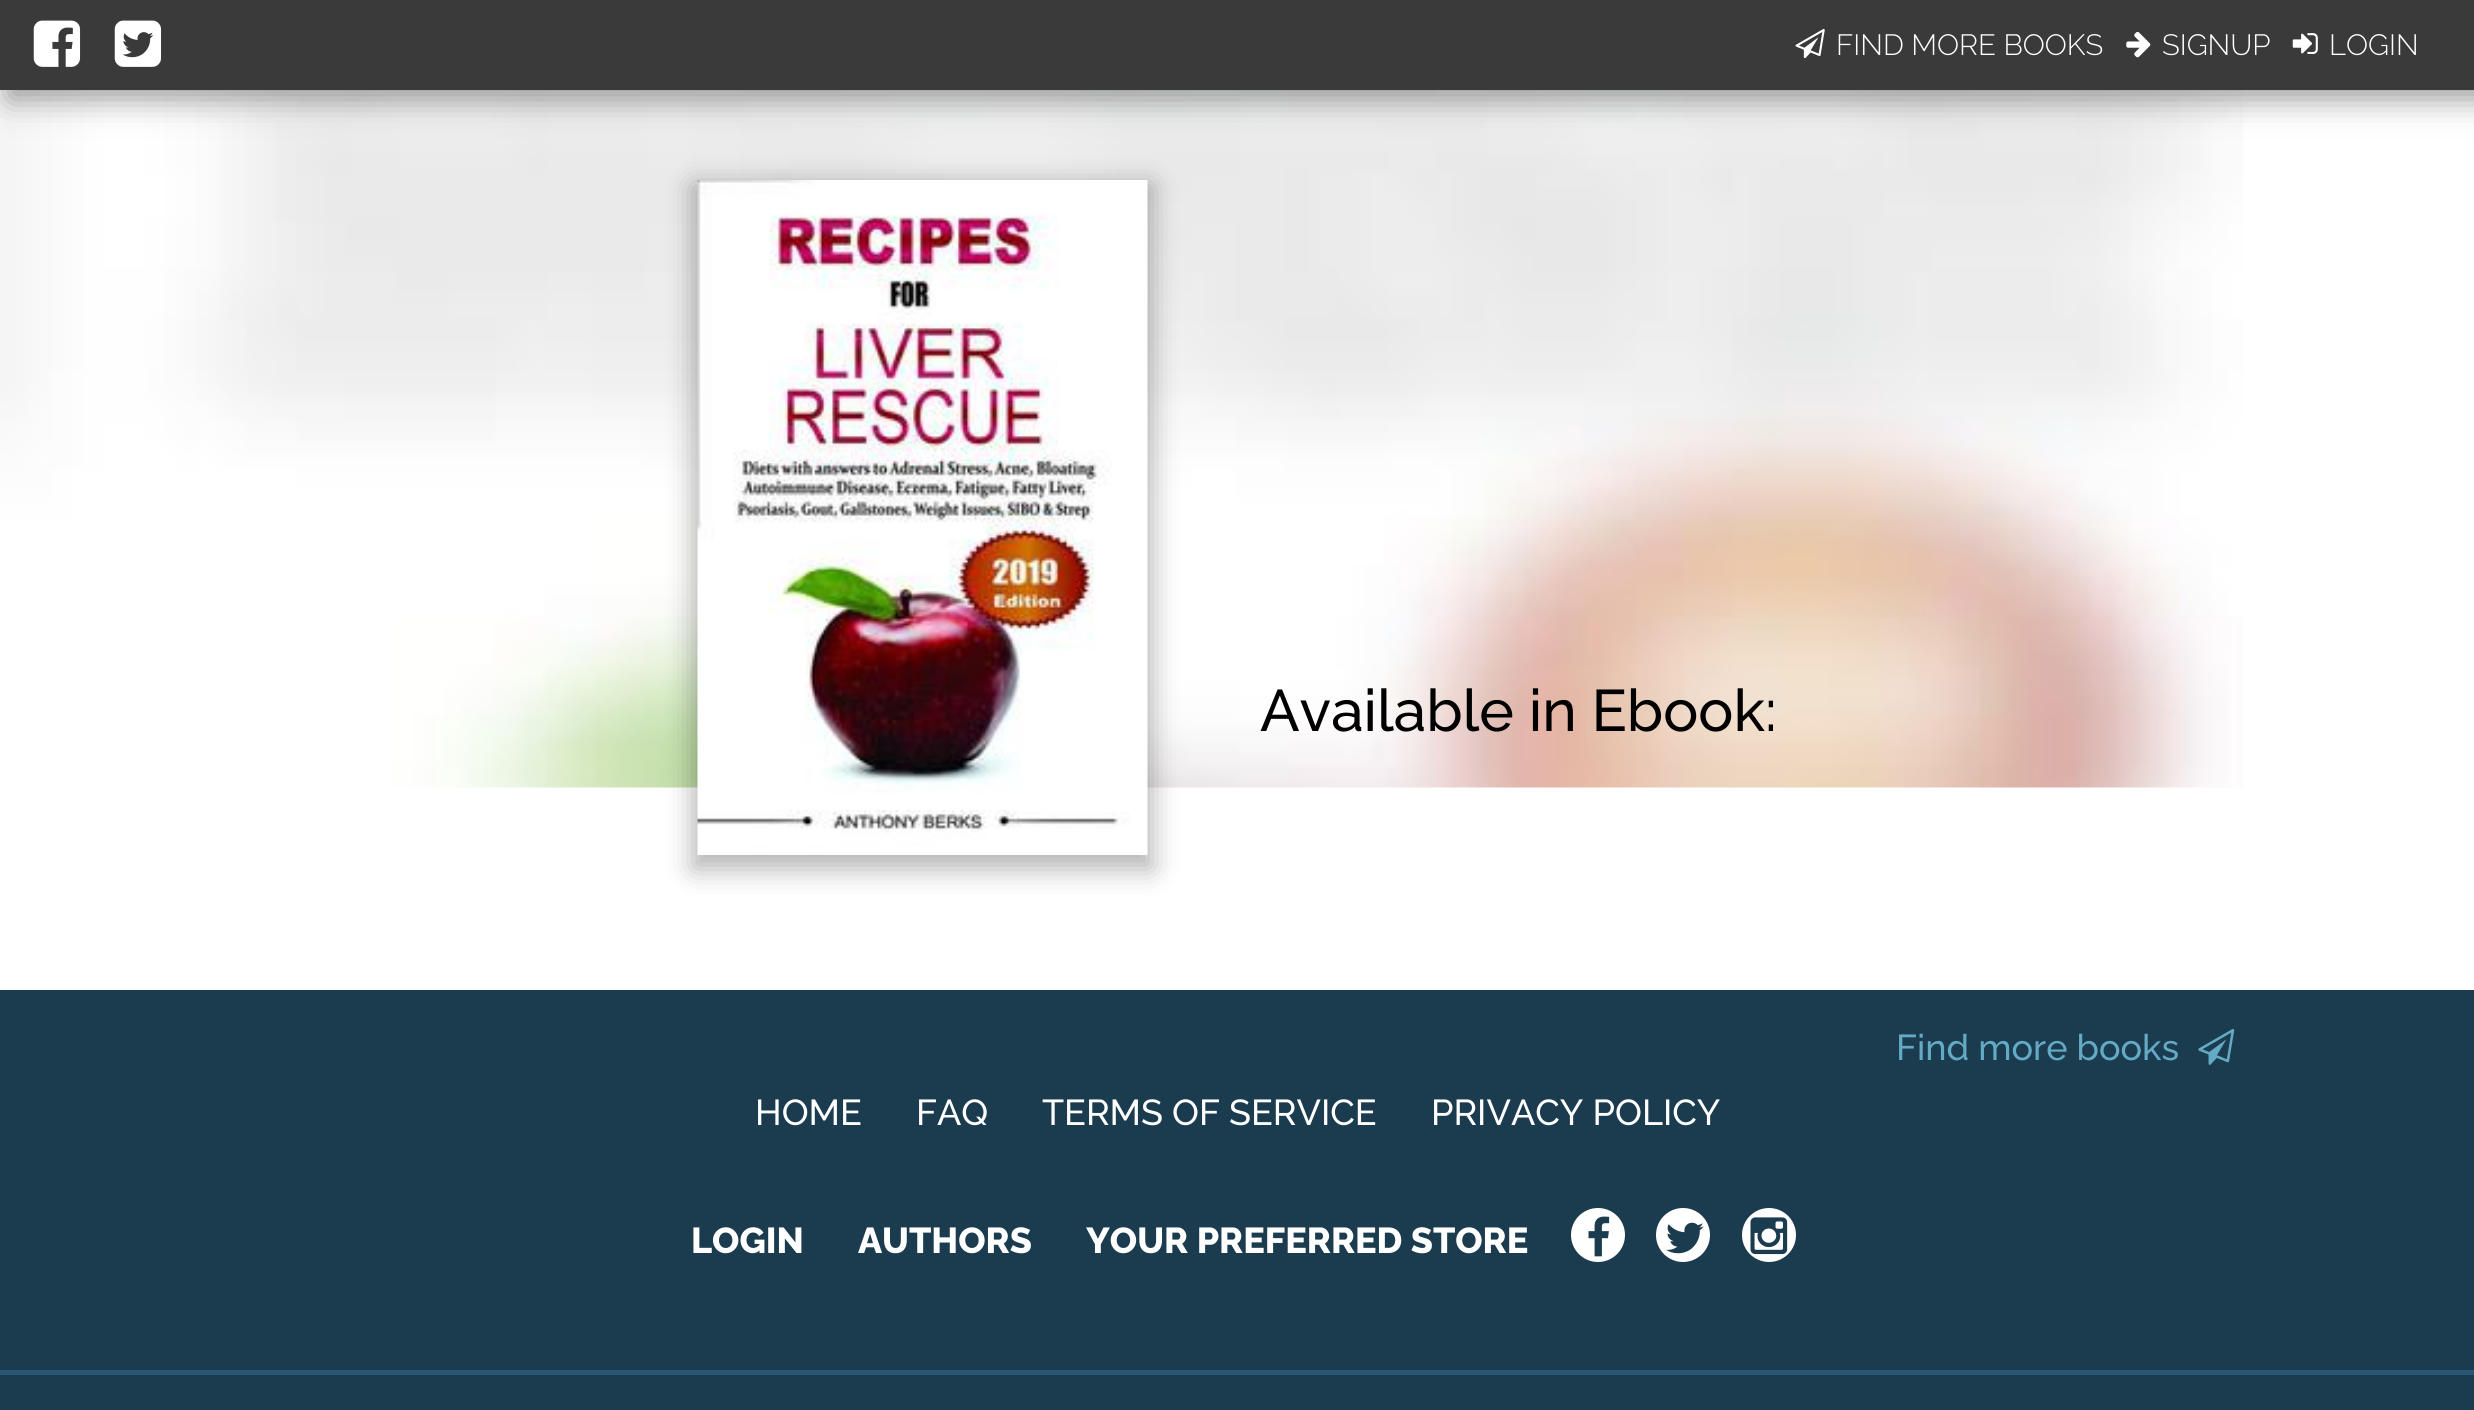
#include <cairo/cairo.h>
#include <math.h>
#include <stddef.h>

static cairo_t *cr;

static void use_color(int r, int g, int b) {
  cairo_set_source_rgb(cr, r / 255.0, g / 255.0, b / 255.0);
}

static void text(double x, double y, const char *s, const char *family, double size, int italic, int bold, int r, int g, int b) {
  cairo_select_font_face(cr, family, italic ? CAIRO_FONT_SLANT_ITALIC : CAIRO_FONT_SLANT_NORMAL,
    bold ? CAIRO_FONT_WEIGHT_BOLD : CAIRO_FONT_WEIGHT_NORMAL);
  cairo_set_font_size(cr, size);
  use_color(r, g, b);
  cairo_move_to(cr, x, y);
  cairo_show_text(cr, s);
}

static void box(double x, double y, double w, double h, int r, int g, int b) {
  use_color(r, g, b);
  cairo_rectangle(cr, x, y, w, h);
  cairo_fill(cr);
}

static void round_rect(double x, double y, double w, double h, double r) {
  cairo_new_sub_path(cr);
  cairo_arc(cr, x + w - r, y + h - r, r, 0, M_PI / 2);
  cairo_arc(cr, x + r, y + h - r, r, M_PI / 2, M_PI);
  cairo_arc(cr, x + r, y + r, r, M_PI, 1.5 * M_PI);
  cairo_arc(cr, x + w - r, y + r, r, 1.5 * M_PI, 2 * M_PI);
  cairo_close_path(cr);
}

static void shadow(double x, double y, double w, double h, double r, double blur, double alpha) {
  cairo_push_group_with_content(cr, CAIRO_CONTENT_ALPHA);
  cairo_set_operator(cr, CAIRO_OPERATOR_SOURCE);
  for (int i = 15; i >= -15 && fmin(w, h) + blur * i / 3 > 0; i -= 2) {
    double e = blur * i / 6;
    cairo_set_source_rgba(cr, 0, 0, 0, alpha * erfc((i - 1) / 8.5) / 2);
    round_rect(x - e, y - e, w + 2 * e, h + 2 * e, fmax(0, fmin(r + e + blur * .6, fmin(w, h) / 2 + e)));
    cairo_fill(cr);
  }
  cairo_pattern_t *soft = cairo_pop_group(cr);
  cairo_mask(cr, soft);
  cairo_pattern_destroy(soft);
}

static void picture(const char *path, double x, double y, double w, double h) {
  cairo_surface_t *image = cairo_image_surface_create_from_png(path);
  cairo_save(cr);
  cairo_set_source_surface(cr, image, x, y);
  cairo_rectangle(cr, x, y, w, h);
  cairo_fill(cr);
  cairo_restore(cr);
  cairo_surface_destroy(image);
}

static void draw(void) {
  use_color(255, 255, 255);
  cairo_paint(cr);
  picture("img_01.png", 0, 90, 2243, 698);
  use_color(0, 0, 0);
  shadow(9, 9, 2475, 90, 0, 16, 0.4);
  box(0, 0, 2474, 90, 58, 58, 58);
  picture("img_02.png", 33, 20, 48, 47);
  picture("img_03.png", 114, 20, 48, 47);
  picture("img_04.png", 1795, 28, 30, 31);
  picture("img_05.png", 2126, 31, 25, 27);
  picture("img_06.png", 2292, 33, 26, 21);
  use_color(0, 0, 0);
  shadow(693, 185, 459, 684, 0, 13.5, 0.3);
  picture("img_07.png", 697, 180, 451, 675);
  box(0, 990, 2474, 420, 27, 59, 79);
  picture("img_08.png", 2198, 1029, 37, 36);
  use_color(255, 255, 255);
  cairo_arc(cr, 1598, 1235, 27, 0, 2 * M_PI);
  cairo_fill(cr);
  picture("img_09.png", 1588, 1216, 22, 41);
  cairo_arc(cr, 1683, 1235, 27, 0, 2 * M_PI);
  cairo_fill(cr);
  picture("img_10.png", 1666, 1222, 38, 32);
  cairo_arc(cr, 1769, 1235, 27, 0, 2 * M_PI);
  cairo_fill(cr);
  picture("img_11.png", 1750, 1217, 38, 38);
  box(0, 1370, 2474, 5, 40, 87, 117);
  text(1836, 55, "FIND MORE BOOKS", "Raleway Light", 29.25, 0, 0, 255, 255, 255);
  text(2162, 55, "SIGNUP", "Raleway Light", 29.25, 0, 0, 255, 255, 255);
  text(2329, 55, "LOGIN", "Raleway Light", 29.25, 0, 0, 255, 255, 255);
  text(1260, 731, "Available in Ebook:", "Raleway Medium", 58.5, 0, 0, 0, 0, 0);
  text(1896, 1060, "Find more books", "Raleway Medium", 36, 0, 0, 99, 170, 197);
  text(755, 1125, "HOME", "Raleway Medium", 36, 0, 0, 255, 255, 255);
  text(916, 1125, "FAQ", "Raleway Medium", 36, 0, 0, 255, 255, 255);
  text(1042, 1125, "TERMS OF SERVICE", "Raleway Medium", 36, 0, 0, 255, 255, 255);
  text(1431, 1125, "PRIVACY POLICY", "Raleway Medium", 36, 0, 0, 255, 255, 255);
  text(691, 1253, "LOGIN", "Raleway ExtraBold", 36, 0, 0, 255, 255, 255);
  text(858, 1253, "AUTHORS", "Raleway ExtraBold", 36, 0, 0, 255, 255, 255);
  text(1086, 1253, "YOUR PREFERRED STORE", "Raleway ExtraBold", 36, 0, 0, 255, 255, 255);
}

int main(void) {
  cairo_surface_t *surface = cairo_image_surface_create(CAIRO_FORMAT_RGB24, 2474, 1410);
  cr = cairo_create(surface);
  cairo_font_options_t *options = cairo_font_options_create();
  cairo_font_options_set_hint_metrics(options, CAIRO_HINT_METRICS_OFF);
  cairo_font_options_set_hint_style(options, CAIRO_HINT_STYLE_NONE);
  cairo_set_font_options(cr, options);
  cairo_set_miter_limit(cr, 4);
  draw();
  cairo_surface_write_to_png(surface, "out.png");
  cairo_font_options_destroy(options);
  cairo_destroy(cr);
  cairo_surface_destroy(surface);
  return 0;
}
